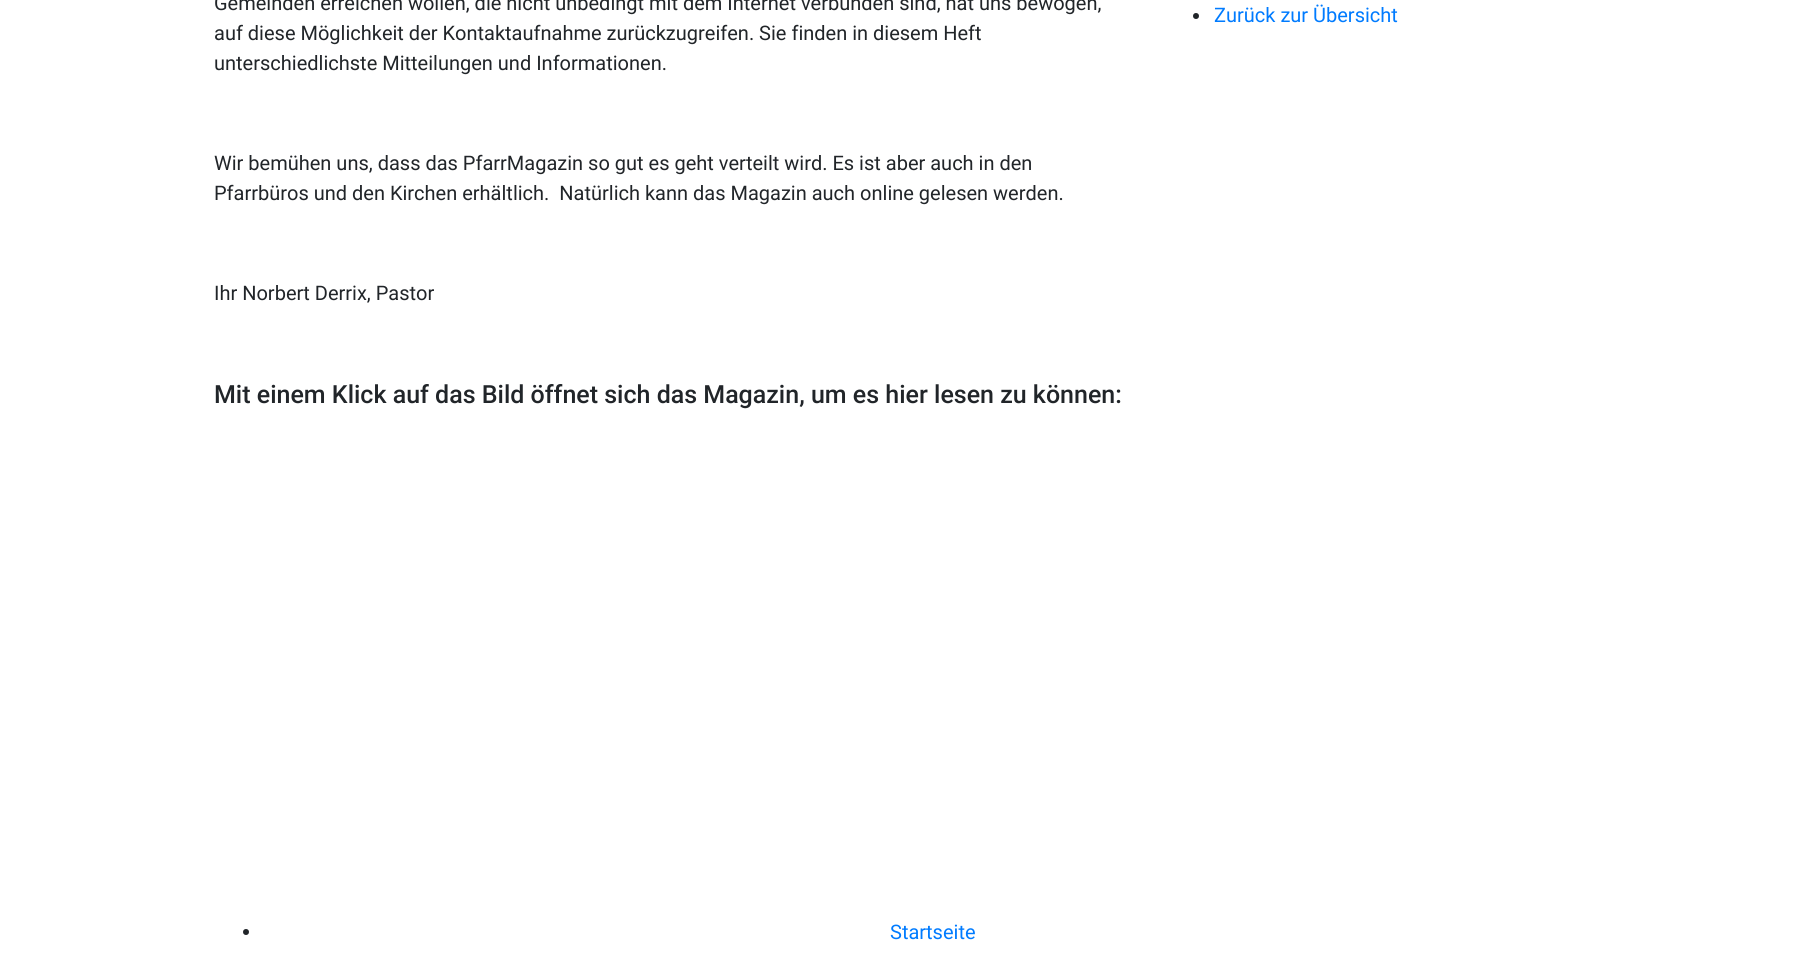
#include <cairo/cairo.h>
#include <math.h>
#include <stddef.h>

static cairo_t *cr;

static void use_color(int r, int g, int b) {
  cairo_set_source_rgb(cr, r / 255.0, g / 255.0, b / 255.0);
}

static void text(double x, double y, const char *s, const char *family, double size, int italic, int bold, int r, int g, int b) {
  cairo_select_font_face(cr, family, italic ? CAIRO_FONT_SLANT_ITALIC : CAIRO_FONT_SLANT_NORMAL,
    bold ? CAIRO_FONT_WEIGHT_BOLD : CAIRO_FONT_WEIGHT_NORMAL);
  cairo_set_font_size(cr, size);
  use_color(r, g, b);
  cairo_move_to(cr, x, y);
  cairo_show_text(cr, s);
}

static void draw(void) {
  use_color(255, 255, 255);
  cairo_paint(cr);
  use_color(33, 37, 41);
  cairo_arc(cr, 1196, 16, 3, 0, 2 * M_PI);
  cairo_fill(cr);
  cairo_arc(cr, 246, 932, 3, 0, 2 * M_PI);
  cairo_fill(cr);
  text(214, 10, "Gemeinden erreichen wollen, die nicht unbedingt mit dem Internet verbunden sind, hat uns bewogen,", "Roboto", 20, 0, 0, 33, 37, 41);
  text(214, 40, "auf diese Möglichkeit der Kontaktaufnahme zurückzugreifen. Sie finden in diesem Heft", "Roboto", 20, 0, 0, 33, 37, 41);
  text(214, 70, "unterschiedlichste Mitteilungen und Informationen.", "Roboto", 20, 0, 0, 33, 37, 41);
  text(214, 170, "Wir bemühen uns, dass das PfarrMagazin so gut es geht verteilt wird. Es ist aber auch in den", "Roboto", 20, 0, 0, 33, 37, 41);
  text(214, 200, "Pfarrbüros und den Kirchen erhältlich.  Natürlich kann das Magazin auch online gelesen werden.", "Roboto", 20, 0, 0, 33, 37, 41);
  text(214, 300, "Ihr Norbert Derrix, Pastor", "Roboto", 20, 0, 0, 33, 37, 41);
  text(214, 403, "Mit einem Klick auf das Bild öffnet sich das Magazin, um es hier lesen zu können:", "Roboto Medium", 25, 0, 0, 33, 37, 41);
  text(1214, 22, "Zurück zur Übersicht", "Roboto", 20, 0, 0, 0, 123, 255);
  text(890, 939, "Startseite", "Roboto", 20, 0, 0, 0, 123, 255);
}

int main(void) {
  cairo_surface_t *surface = cairo_image_surface_create(CAIRO_FORMAT_RGB24, 1814, 954);
  cr = cairo_create(surface);
  cairo_font_options_t *options = cairo_font_options_create();
  cairo_font_options_set_hint_metrics(options, CAIRO_HINT_METRICS_OFF);
  cairo_font_options_set_hint_style(options, CAIRO_HINT_STYLE_NONE);
  cairo_set_font_options(cr, options);
  cairo_set_miter_limit(cr, 4);
  draw();
  cairo_surface_write_to_png(surface, "out.png");
  cairo_font_options_destroy(options);
  cairo_destroy(cr);
  cairo_surface_destroy(surface);
  return 0;
}
